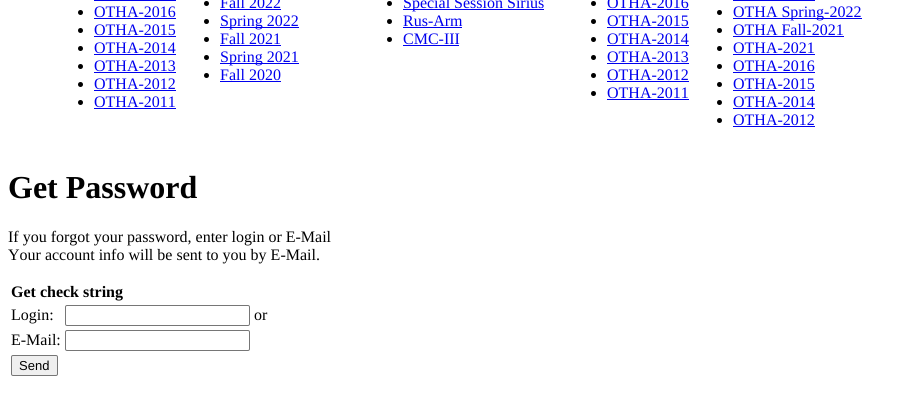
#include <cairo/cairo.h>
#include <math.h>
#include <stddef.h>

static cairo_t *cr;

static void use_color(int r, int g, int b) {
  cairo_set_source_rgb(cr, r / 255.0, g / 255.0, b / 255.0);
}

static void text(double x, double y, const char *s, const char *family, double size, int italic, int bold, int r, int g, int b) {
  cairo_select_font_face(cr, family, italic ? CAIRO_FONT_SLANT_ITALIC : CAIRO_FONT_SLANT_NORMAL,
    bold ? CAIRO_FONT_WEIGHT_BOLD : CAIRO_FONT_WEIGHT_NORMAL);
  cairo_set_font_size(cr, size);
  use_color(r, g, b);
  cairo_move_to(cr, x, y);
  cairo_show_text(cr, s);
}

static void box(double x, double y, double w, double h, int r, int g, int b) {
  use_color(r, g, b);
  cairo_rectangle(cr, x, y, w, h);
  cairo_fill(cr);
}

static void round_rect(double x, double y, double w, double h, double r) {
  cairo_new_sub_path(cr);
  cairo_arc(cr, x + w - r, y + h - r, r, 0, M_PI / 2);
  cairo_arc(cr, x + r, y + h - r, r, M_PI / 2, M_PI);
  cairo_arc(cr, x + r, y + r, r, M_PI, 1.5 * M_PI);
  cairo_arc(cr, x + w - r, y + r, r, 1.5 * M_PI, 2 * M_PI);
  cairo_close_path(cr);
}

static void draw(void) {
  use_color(255, 255, 255);
  cairo_paint(cr);
  box(94, 0, 82, 1, 0, 0, 238);
  use_color(0, 0, 0);
  cairo_arc(cr, 80.5, 12.5, 2.5, 0, 2 * M_PI);
  cairo_fill(cr);
  box(94, 18, 82, 1, 0, 0, 238);
  use_color(0, 0, 0);
  cairo_arc(cr, 80.5, 30.5, 2.5, 0, 2 * M_PI);
  cairo_fill(cr);
  box(94, 36, 82, 1, 0, 0, 238);
  use_color(0, 0, 0);
  cairo_arc(cr, 80.5, 48.5, 2.5, 0, 2 * M_PI);
  cairo_fill(cr);
  box(94, 54, 82, 1, 0, 0, 238);
  use_color(0, 0, 0);
  cairo_arc(cr, 80.5, 66.5, 2.5, 0, 2 * M_PI);
  cairo_fill(cr);
  box(94, 72, 82, 1, 0, 0, 238);
  use_color(0, 0, 0);
  cairo_arc(cr, 80.5, 84.5, 2.5, 0, 2 * M_PI);
  cairo_fill(cr);
  box(94, 90, 82, 1, 0, 0, 238);
  use_color(0, 0, 0);
  cairo_arc(cr, 80.5, 102.5, 2.5, 0, 2 * M_PI);
  cairo_fill(cr);
  box(94, 108, 82, 1, 0, 0, 238);
  use_color(0, 0, 0);
  cairo_arc(cr, 206.5, 3.5, 2.5, 0, 2 * M_PI);
  cairo_fill(cr);
  box(220, 9, 61, 1, 0, 0, 238);
  use_color(0, 0, 0);
  cairo_arc(cr, 206.5, 21.5, 2.5, 0, 2 * M_PI);
  cairo_fill(cr);
  box(220, 27, 79, 1, 0, 0, 238);
  use_color(0, 0, 0);
  cairo_arc(cr, 206.5, 39.5, 2.5, 0, 2 * M_PI);
  cairo_fill(cr);
  box(220, 45, 61, 1, 0, 0, 238);
  use_color(0, 0, 0);
  cairo_arc(cr, 206.5, 57.5, 2.5, 0, 2 * M_PI);
  cairo_fill(cr);
  box(220, 63, 79, 1, 0, 0, 238);
  use_color(0, 0, 0);
  cairo_arc(cr, 206.5, 75.5, 2.5, 0, 2 * M_PI);
  cairo_fill(cr);
  box(220, 81, 61, 1, 0, 0, 238);
  use_color(0, 0, 0);
  cairo_arc(cr, 389.5, 3.5, 2.5, 0, 2 * M_PI);
  cairo_fill(cr);
  box(403, 9, 141, 1, 0, 0, 238);
  use_color(0, 0, 0);
  cairo_arc(cr, 389.5, 21.5, 2.5, 0, 2 * M_PI);
  cairo_fill(cr);
  box(403, 27, 59, 1, 0, 0, 238);
  use_color(0, 0, 0);
  cairo_arc(cr, 389.5, 39.5, 2.5, 0, 2 * M_PI);
  cairo_fill(cr);
  box(403, 45, 56, 1, 0, 0, 238);
  use_color(0, 0, 0);
  cairo_arc(cr, 593.5, 3.5, 2.5, 0, 2 * M_PI);
  cairo_fill(cr);
  box(607, 9, 82, 1, 0, 0, 238);
  use_color(0, 0, 0);
  cairo_arc(cr, 593.5, 21.5, 2.5, 0, 2 * M_PI);
  cairo_fill(cr);
  box(607, 27, 82, 1, 0, 0, 238);
  use_color(0, 0, 0);
  cairo_arc(cr, 593.5, 39.5, 2.5, 0, 2 * M_PI);
  cairo_fill(cr);
  box(607, 45, 82, 1, 0, 0, 238);
  use_color(0, 0, 0);
  cairo_arc(cr, 593.5, 57.5, 2.5, 0, 2 * M_PI);
  cairo_fill(cr);
  box(607, 63, 82, 1, 0, 0, 238);
  use_color(0, 0, 0);
  cairo_arc(cr, 593.5, 75.5, 2.5, 0, 2 * M_PI);
  cairo_fill(cr);
  box(607, 81, 82, 1, 0, 0, 238);
  use_color(0, 0, 0);
  cairo_arc(cr, 593.5, 93.5, 2.5, 0, 2 * M_PI);
  cairo_fill(cr);
  box(607, 99, 82, 1, 0, 0, 238);
  box(733, 0, 82, 1, 0, 0, 238);
  use_color(0, 0, 0);
  cairo_arc(cr, 719.5, 12.5, 2.5, 0, 2 * M_PI);
  cairo_fill(cr);
  box(733, 18, 129, 1, 0, 0, 238);
  use_color(0, 0, 0);
  cairo_arc(cr, 719.5, 30.5, 2.5, 0, 2 * M_PI);
  cairo_fill(cr);
  box(733, 36, 111, 1, 0, 0, 238);
  use_color(0, 0, 0);
  cairo_arc(cr, 719.5, 48.5, 2.5, 0, 2 * M_PI);
  cairo_fill(cr);
  box(733, 54, 82, 1, 0, 0, 238);
  use_color(0, 0, 0);
  cairo_arc(cr, 719.5, 66.5, 2.5, 0, 2 * M_PI);
  cairo_fill(cr);
  box(733, 72, 82, 1, 0, 0, 238);
  use_color(0, 0, 0);
  cairo_arc(cr, 719.5, 84.5, 2.5, 0, 2 * M_PI);
  cairo_fill(cr);
  box(733, 90, 82, 1, 0, 0, 238);
  use_color(0, 0, 0);
  cairo_arc(cr, 719.5, 102.5, 2.5, 0, 2 * M_PI);
  cairo_fill(cr);
  box(733, 108, 82, 1, 0, 0, 238);
  use_color(0, 0, 0);
  cairo_arc(cr, 719.5, 120.5, 2.5, 0, 2 * M_PI);
  cairo_fill(cr);
  box(733, 126, 82, 1, 0, 0, 238);
  round_rect(65.5, 305.5, 184, 20, 1.5);
  use_color(118, 118, 118);
  cairo_set_line_width(cr, 1);
  cairo_stroke(cr);
  round_rect(65.5, 330.5, 184, 20, 1.5);
  cairo_stroke(cr);
  use_color(239, 239, 239);
  round_rect(11.5, 355.5, 46, 20, 1.5);
  cairo_fill_preserve(cr);
  use_color(118, 118, 118);
  cairo_stroke(cr);
  text(94, 17, "OTHA-2016", "Liberation Serif", 16, 0, 0, 0, 0, 238);
  text(94, 35, "OTHA-2015", "Liberation Serif", 16, 0, 0, 0, 0, 238);
  text(94, 53, "OTHA-2014", "Liberation Serif", 16, 0, 0, 0, 0, 238);
  text(94, 71, "OTHA-2013", "Liberation Serif", 16, 0, 0, 0, 0, 238);
  text(94, 89, "OTHA-2012", "Liberation Serif", 16, 0, 0, 0, 0, 238);
  text(94, 107, "OTHA-2011", "Liberation Serif", 16, 0, 0, 0, 0, 238);
  text(220, 8, "Fall 2022", "Liberation Serif", 16, 0, 0, 0, 0, 238);
  text(220, 26, "Spring 2022", "Liberation Serif", 16, 0, 0, 0, 0, 238);
  text(220, 44, "Fall 2021", "Liberation Serif", 16, 0, 0, 0, 0, 238);
  text(220, 62, "Spring 2021", "Liberation Serif", 16, 0, 0, 0, 0, 238);
  text(220, 80, "Fall 2020", "Liberation Serif", 16, 0, 0, 0, 0, 238);
  text(403, 8, "Special Session Sirius", "Liberation Serif", 16, 0, 0, 0, 0, 238);
  text(403, 26, "Rus-Arm", "Liberation Serif", 16, 0, 0, 0, 0, 238);
  text(403, 44, "CMC-III", "Liberation Serif", 16, 0, 0, 0, 0, 238);
  text(607, 8, "OTHA-2016", "Liberation Serif", 16, 0, 0, 0, 0, 238);
  text(607, 26, "OTHA-2015", "Liberation Serif", 16, 0, 0, 0, 0, 238);
  text(607, 44, "OTHA-2014", "Liberation Serif", 16, 0, 0, 0, 0, 238);
  text(607, 62, "OTHA-2013", "Liberation Serif", 16, 0, 0, 0, 0, 238);
  text(607, 80, "OTHA-2012", "Liberation Serif", 16, 0, 0, 0, 0, 238);
  text(607, 98, "OTHA-2011", "Liberation Serif", 16, 0, 0, 0, 0, 238);
  text(733, 17, "OTHA Spring-2022", "Liberation Serif", 16, 0, 0, 0, 0, 238);
  text(733, 35, "OTHA Fall-2021", "Liberation Serif", 16, 0, 0, 0, 0, 238);
  text(733, 53, "OTHA-2021", "Liberation Serif", 16, 0, 0, 0, 0, 238);
  text(733, 71, "OTHA-2016", "Liberation Serif", 16, 0, 0, 0, 0, 238);
  text(733, 89, "OTHA-2015", "Liberation Serif", 16, 0, 0, 0, 0, 238);
  text(733, 107, "OTHA-2014", "Liberation Serif", 16, 0, 0, 0, 0, 238);
  text(733, 125, "OTHA-2012", "Liberation Serif", 16, 0, 0, 0, 0, 238);
  text(8, 198, "Get Password", "Liberation Serif", 32, 0, 1, 0, 0, 0);
  text(8, 242, "If you forgot your password, enter login or E-Mail", "Liberation Serif", 16, 0, 0, 0, 0, 0);
  text(8, 260, "Your account info will be sent to you by E-Mail.", "Liberation Serif", 16, 0, 0, 0, 0, 0);
  text(11, 297, "Get check string", "Liberation Serif", 16, 0, 1, 0, 0, 0);
  text(11, 320, "Login:", "Liberation Serif", 16, 0, 0, 0, 0, 0);
  text(254, 320, "or", "Liberation Serif", 16, 0, 0, 0, 0, 0);
  text(11, 345, "E-Mail:", "Liberation Serif", 16, 0, 0, 0, 0, 0);
  text(19, 370, "Send", "Liberation Sans", 13, 0, 0, 0, 0, 0);
}

int main(void) {
  cairo_surface_t *surface = cairo_image_surface_create(CAIRO_FORMAT_RGB24, 923, 406);
  cr = cairo_create(surface);
  cairo_font_options_t *options = cairo_font_options_create();
  cairo_font_options_set_hint_metrics(options, CAIRO_HINT_METRICS_OFF);
  cairo_font_options_set_hint_style(options, CAIRO_HINT_STYLE_NONE);
  cairo_set_font_options(cr, options);
  cairo_set_miter_limit(cr, 4);
  draw();
  cairo_surface_write_to_png(surface, "out.png");
  cairo_font_options_destroy(options);
  cairo_destroy(cr);
  cairo_surface_destroy(surface);
  return 0;
}
